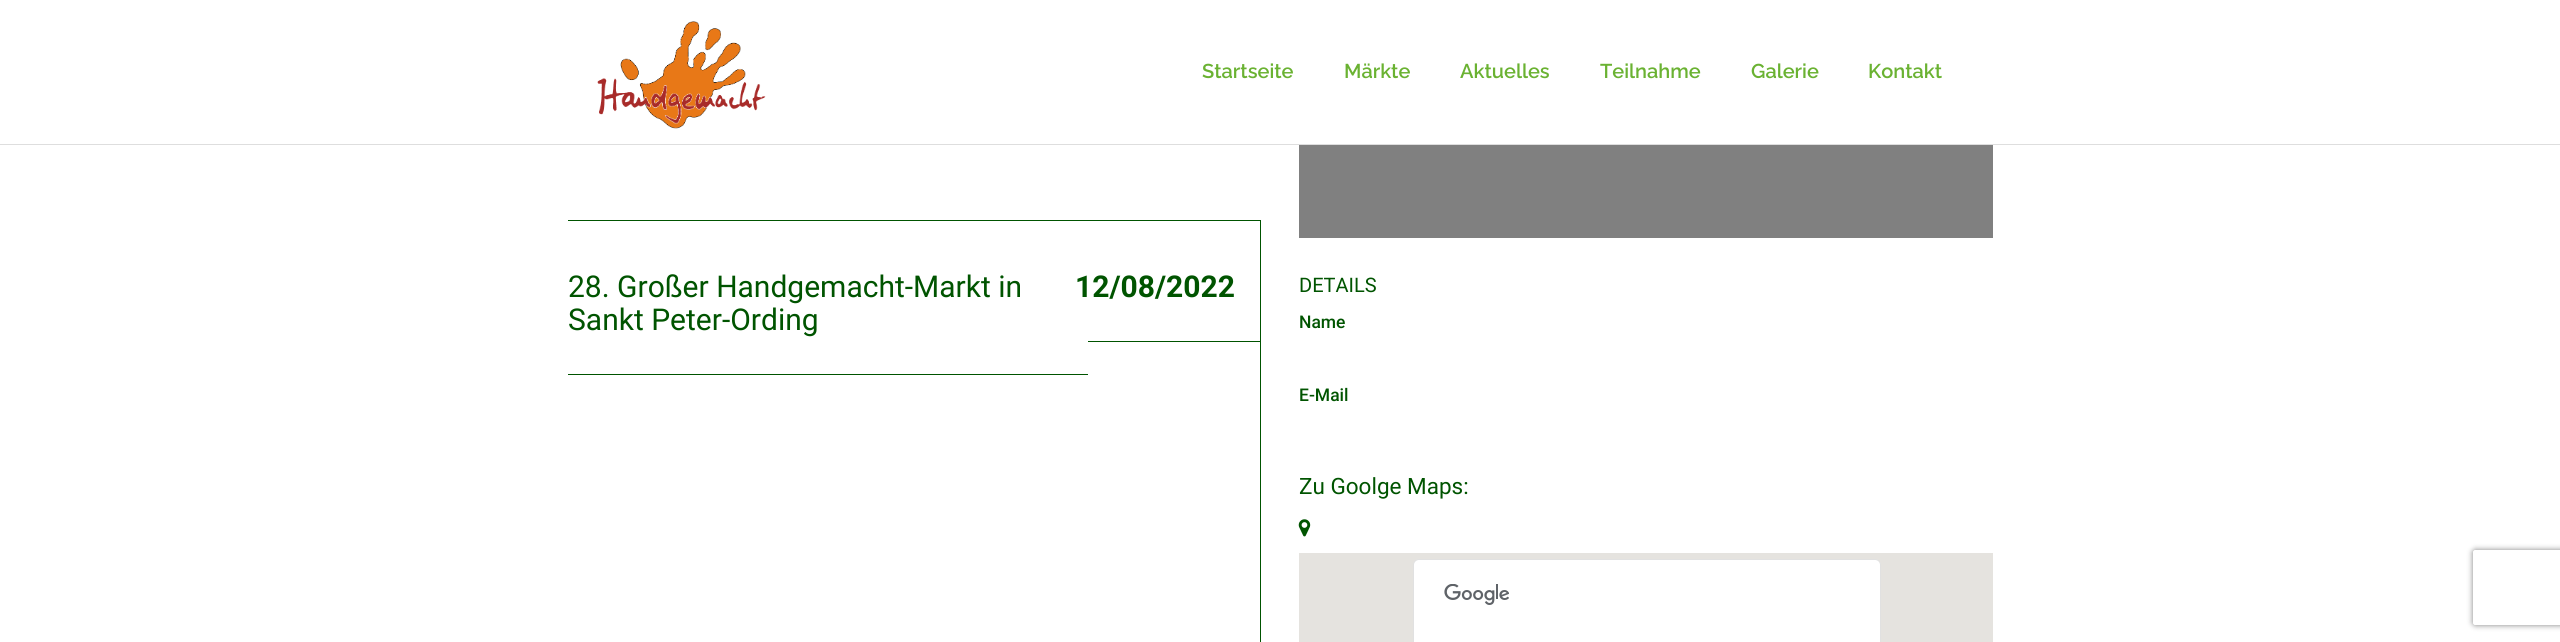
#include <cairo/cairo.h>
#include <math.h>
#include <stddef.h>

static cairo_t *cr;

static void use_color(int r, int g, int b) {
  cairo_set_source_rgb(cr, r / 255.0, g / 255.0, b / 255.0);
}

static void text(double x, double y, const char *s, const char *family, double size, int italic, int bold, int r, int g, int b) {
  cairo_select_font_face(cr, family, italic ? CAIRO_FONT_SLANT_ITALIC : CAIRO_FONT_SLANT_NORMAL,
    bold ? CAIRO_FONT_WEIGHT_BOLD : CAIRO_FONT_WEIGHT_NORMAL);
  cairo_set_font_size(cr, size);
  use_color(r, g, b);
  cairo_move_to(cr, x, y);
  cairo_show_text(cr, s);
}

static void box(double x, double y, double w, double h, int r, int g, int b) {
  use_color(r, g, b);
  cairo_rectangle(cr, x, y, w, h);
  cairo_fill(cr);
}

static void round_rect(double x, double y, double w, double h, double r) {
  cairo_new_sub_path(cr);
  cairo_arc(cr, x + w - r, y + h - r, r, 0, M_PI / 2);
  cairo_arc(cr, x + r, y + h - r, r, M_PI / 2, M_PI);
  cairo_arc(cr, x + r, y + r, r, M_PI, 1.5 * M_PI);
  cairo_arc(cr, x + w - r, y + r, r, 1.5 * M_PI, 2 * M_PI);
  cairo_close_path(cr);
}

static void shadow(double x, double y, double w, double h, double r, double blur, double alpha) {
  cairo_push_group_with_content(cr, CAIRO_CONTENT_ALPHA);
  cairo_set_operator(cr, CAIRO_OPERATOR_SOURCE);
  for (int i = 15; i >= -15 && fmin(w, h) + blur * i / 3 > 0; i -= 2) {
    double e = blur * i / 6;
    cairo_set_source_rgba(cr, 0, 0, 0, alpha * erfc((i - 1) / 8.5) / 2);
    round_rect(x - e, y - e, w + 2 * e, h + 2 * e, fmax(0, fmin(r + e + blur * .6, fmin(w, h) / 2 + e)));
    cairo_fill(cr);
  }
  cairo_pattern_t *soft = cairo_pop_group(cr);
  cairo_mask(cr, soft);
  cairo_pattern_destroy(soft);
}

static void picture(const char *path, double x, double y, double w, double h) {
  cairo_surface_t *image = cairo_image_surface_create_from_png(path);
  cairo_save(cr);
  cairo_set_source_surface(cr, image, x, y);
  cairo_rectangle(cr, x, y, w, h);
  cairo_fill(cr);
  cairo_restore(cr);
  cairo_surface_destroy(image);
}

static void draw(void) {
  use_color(255, 255, 255);
  cairo_paint(cr);
  box(0, 144, 2560, 1, 222, 222, 222);
  picture("img_01.png", 597, 21, 169, 108);
  box(568, 220, 693, 1, 0, 84, 0);
  box(1260, 220, 1, 422, 0, 84, 0);
  box(568, 374, 520, 1, 0, 84, 0);
  box(1088, 341, 172, 1, 0, 84, 0);
  box(1299, 145, 694, 93, 128, 128, 128);
  picture("img_02.png", 1298, 519, 13, 18);
  box(1299, 553, 694, 89, 229, 227, 223);
  use_color(255, 255, 255);
  round_rect(1413, 559, 468, 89, 6);
  cairo_fill(cr);
  round_rect(1413.5, 559.5, 467, 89, 5.5);
  cairo_set_source_rgba(cr, 0, 0, 0, 0.12);
  cairo_set_line_width(cr, 1);
  cairo_stroke(cr);
  picture("img_03.png", 1444, 584, 65, 21);
  cairo_save(cr);
  cairo_set_fill_rule(cr, CAIRO_FILL_RULE_EVEN_ODD);
  cairo_new_path(cr);
  cairo_move_to(cr, 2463, 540);
  cairo_line_to(cr, 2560, 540);
  cairo_line_to(cr, 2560, 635);
  cairo_line_to(cr, 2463, 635);
  cairo_close_path(cr);
  cairo_move_to(cr, 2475.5, 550);
  cairo_line_to(cr, 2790.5, 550);
  cairo_curve_to(cr, 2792, 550, 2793, 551, 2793, 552.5);
  cairo_line_to(cr, 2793, 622.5);
  cairo_curve_to(cr, 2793, 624, 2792, 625, 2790.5, 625);
  cairo_line_to(cr, 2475.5, 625);
  cairo_curve_to(cr, 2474, 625, 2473, 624, 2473, 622.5);
  cairo_line_to(cr, 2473, 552.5);
  cairo_curve_to(cr, 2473, 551, 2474, 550, 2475.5, 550);
  cairo_close_path(cr);
  cairo_clip(cr);
  use_color(128, 128, 128);
  shadow(2473, 550, 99, 75, 2.5, 3, 1);
  cairo_restore(cr);
  text(1202, 78, "Startseite", "Raleway SemiBold", 20, 0, 0, 106, 178, 50);
  text(1344, 78, "Märkte", "Raleway SemiBold", 20, 0, 0, 106, 178, 50);
  text(1460, 78, "Aktuelles", "Raleway SemiBold", 20, 0, 0, 106, 178, 50);
  text(1600, 78, "Teilnahme", "Raleway SemiBold", 20, 0, 0, 106, 178, 50);
  text(1751, 78, "Galerie", "Raleway SemiBold", 20, 0, 0, 106, 178, 50);
  text(1868, 78, "Kontakt", "Raleway SemiBold", 20, 0, 0, 106, 178, 50);
  text(568, 297, "28. Großer Handgemacht-Markt in", "Roboto", 30, 0, 0, 0, 84, 0);
  text(568, 330, "Sankt Peter-Ording", "Roboto", 30, 0, 0, 0, 84, 0);
  text(1075, 297, "12/08/2022", "Roboto", 30, 0, 1, 0, 84, 0);
  text(1299, 292, "DETAILS", "Roboto", 20, 0, 0, 0, 84, 0);
  text(1299, 328, "Name", "Roboto Medium", 17.5, 0, 0, 0, 84, 0);
  text(1299, 401, "E-Mail", "Roboto Medium", 17.5, 0, 0, 0, 84, 0);
  text(1299, 494, "Zu Goolge Maps:", "Roboto", 22.5, 0, 0, 0, 84, 0);
}

int main(void) {
  cairo_surface_t *surface = cairo_image_surface_create(CAIRO_FORMAT_RGB24, 2560, 642);
  cr = cairo_create(surface);
  cairo_font_options_t *options = cairo_font_options_create();
  cairo_font_options_set_hint_metrics(options, CAIRO_HINT_METRICS_OFF);
  cairo_font_options_set_hint_style(options, CAIRO_HINT_STYLE_NONE);
  cairo_set_font_options(cr, options);
  cairo_set_miter_limit(cr, 4);
  draw();
  cairo_surface_write_to_png(surface, "out.png");
  cairo_font_options_destroy(options);
  cairo_destroy(cr);
  cairo_surface_destroy(surface);
  return 0;
}
